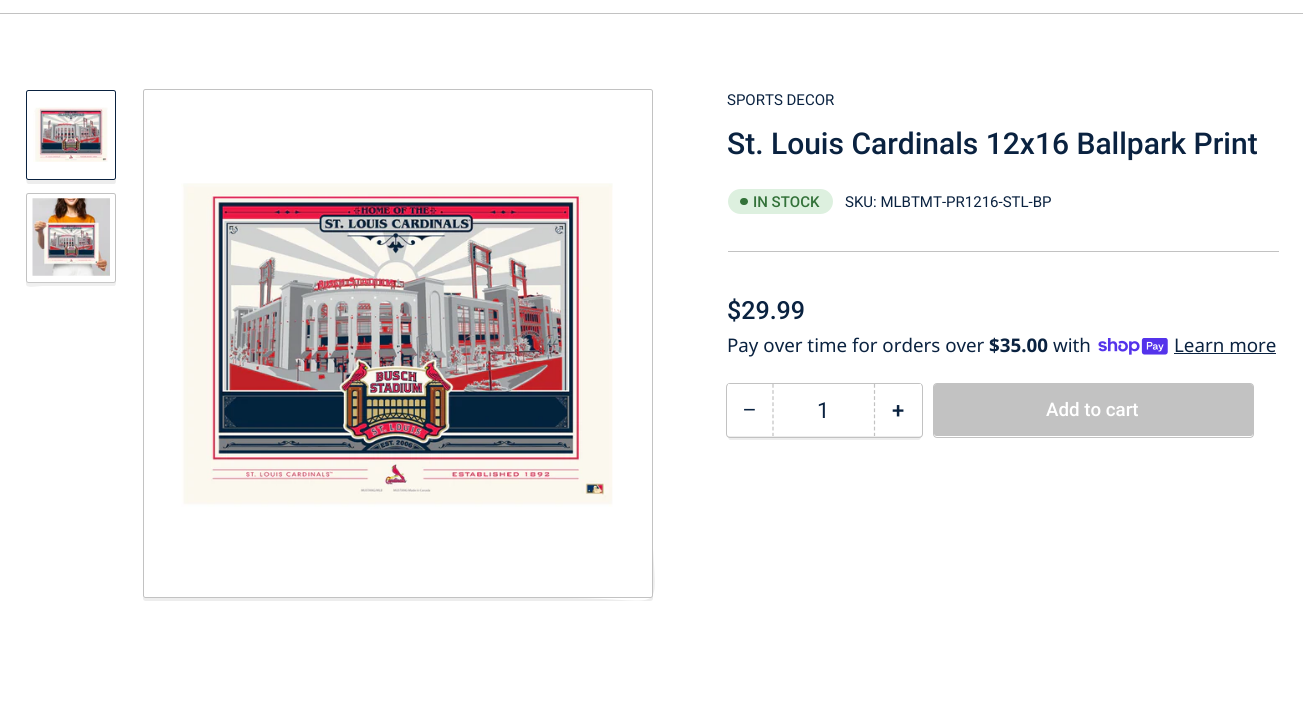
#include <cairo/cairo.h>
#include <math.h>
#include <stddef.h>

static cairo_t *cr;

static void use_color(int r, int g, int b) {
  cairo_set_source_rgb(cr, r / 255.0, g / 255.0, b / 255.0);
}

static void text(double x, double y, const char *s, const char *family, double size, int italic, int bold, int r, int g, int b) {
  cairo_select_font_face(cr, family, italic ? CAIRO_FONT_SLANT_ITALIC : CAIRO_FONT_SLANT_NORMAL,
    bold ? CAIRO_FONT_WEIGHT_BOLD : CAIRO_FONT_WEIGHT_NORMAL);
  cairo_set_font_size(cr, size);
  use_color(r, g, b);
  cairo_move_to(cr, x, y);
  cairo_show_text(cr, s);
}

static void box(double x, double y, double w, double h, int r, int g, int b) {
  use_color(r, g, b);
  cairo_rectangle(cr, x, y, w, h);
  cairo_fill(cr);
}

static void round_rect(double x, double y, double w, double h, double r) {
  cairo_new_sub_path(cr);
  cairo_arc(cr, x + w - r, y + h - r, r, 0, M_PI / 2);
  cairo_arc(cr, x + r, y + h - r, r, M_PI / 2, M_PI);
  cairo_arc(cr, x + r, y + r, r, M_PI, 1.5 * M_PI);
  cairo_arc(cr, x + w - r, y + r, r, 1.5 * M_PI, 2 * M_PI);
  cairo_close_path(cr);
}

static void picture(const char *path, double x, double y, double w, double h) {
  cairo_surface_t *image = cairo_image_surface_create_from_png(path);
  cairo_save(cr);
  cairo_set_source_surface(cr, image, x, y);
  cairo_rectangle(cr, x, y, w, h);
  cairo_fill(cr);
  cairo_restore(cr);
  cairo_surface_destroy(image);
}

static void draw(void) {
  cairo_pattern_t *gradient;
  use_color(255, 255, 255);
  cairo_paint(cr);
  box(0, 13, 1303, 1, 194, 194, 194);
  use_color(237, 237, 237);
  cairo_new_path(cr);
  cairo_move_to(cr, 26, 95);
  cairo_line_to(cr, 26, 139);
  cairo_curve_to(cr, 26, 144, 25, 182, 27, 183);
  cairo_line_to(cr, 28, 184);
  cairo_line_to(cr, 114, 184);
  cairo_curve_to(cr, 116, 184, 116, 181, 116, 179);
  cairo_curve_to(cr, 116, 179, 115, 180, 114, 180);
  cairo_line_to(cr, 29, 180);
  cairo_curve_to(cr, 27, 180, 26, 179, 26, 178);
  cairo_close_path(cr);
  cairo_fill(cr);
  use_color(255, 255, 255);
  round_rect(26.5, 90.5, 89, 89, 2);
  cairo_fill_preserve(cr);
  use_color(10, 34, 64);
  cairo_set_line_width(cr, 1);
  cairo_stroke(cr);
  picture("img_01.png", 33, 107, 75, 55);
  use_color(237, 237, 237);
  cairo_new_path(cr);
  cairo_move_to(cr, 26, 197);
  cairo_line_to(cr, 26, 284);
  cairo_curve_to(cr, 26, 289, 37, 286, 43, 286);
  cairo_line_to(cr, 114, 286);
  cairo_curve_to(cr, 116, 286, 116, 283, 116, 281);
  cairo_curve_to(cr, 116, 282, 115, 282, 114, 282);
  cairo_line_to(cr, 29, 282);
  cairo_curve_to(cr, 27, 282, 26, 281, 26, 280);
  cairo_close_path(cr);
  cairo_fill(cr);
  use_color(255, 255, 255);
  round_rect(26.5, 193.5, 89, 89, 2);
  cairo_fill_preserve(cr);
  use_color(194, 194, 194);
  cairo_stroke(cr);
  picture("img_02.png", 32, 198, 78, 78);
  gradient = cairo_pattern_create_linear(71, 321, 71, 278);
  cairo_pattern_add_color_stop_rgba(gradient, 0, 1, 1, 1, 1);
  cairo_pattern_add_color_stop_rgba(gradient, 1, 1, 1, 1, 0);
  cairo_set_source(cr, gradient);
  cairo_pattern_destroy(gradient);
  cairo_rectangle(cr, 26, 280, 90, 7);
  cairo_fill(cr);
  use_color(237, 237, 237);
  cairo_new_path(cr);
  cairo_move_to(cr, 143, 597);
  cairo_line_to(cr, 143, 598);
  cairo_curve_to(cr, 143, 600, 144, 601, 146, 601);
  cairo_line_to(cr, 650, 601);
  cairo_curve_to(cr, 652, 601, 653, 600, 653, 598);
  cairo_line_to(cr, 653, 96);
  cairo_line_to(cr, 652, 94);
  cairo_line_to(cr, 652, 511);
  cairo_curve_to(cr, 652, 624, 679, 598, 566, 598);
  cairo_line_to(cr, 145, 598);
  cairo_close_path(cr);
  cairo_fill(cr);
  use_color(255, 255, 255);
  round_rect(143.5, 89.5, 509, 508, 2);
  cairo_fill_preserve(cr);
  use_color(194, 194, 194);
  cairo_stroke(cr);
  picture("img_03.png", 181, 183, 432, 324);
  box(728, 251, 551, 1, 194, 194, 194);
  use_color(221, 240, 223);
  round_rect(728, 189, 105, 25, 12.5);
  cairo_fill(cr);
  use_color(51, 114, 57);
  round_rect(740, 198, 8, 7, 3.5);
  cairo_fill(cr);
  picture("img_04.png", 1098, 338, 70, 17);
  box(1174, 353, 102, 1, 10, 34, 64);
  use_color(237, 237, 237);
  cairo_new_path(cr);
  cairo_move_to(cr, 728, 435);
  cairo_curve_to(cr, 728, 437, 728, 439, 730, 440);
  cairo_line_to(cr, 918, 440);
  cairo_curve_to(cr, 921, 440, 921, 437, 921, 435);
  cairo_curve_to(cr, 921, 436, 920, 436, 919, 436);
  cairo_line_to(cr, 730, 436);
  cairo_curve_to(cr, 729, 436, 728, 436, 728, 435);
  cairo_close_path(cr);
  cairo_fill(cr);
  round_rect(726.5, 383.5, 196, 54, 3.5);
  use_color(194, 194, 194);
  cairo_stroke(cr);
  box(728, 384, 2, 52, 255, 255, 255);
  cairo_new_path(cr);
  cairo_move_to(cr, 874.5, 384);
  cairo_line_to(cr, 874.5, 436);
  use_color(194, 194, 194);
  cairo_set_line_width(cr, 1.2);
  cairo_set_dash(cr, (double[]){3.75, 2.35}, 2, 0);
  cairo_stroke(cr);
  cairo_new_path(cr);
  cairo_move_to(cr, 773, 384);
  cairo_line_to(cr, 773, 436);
  cairo_stroke(cr);
  box(919, 384, 2, 52, 255, 255, 255);
  round_rect(933.5, 383.5, 320, 54, 3.5);
  use_color(194, 194, 194);
  cairo_set_line_width(cr, 1);
  cairo_set_dash(cr, NULL, 0, 0);
  cairo_stroke(cr);
  round_rect(934, 384, 319, 52, 2.5);
  cairo_fill(cr);
  text(727, 105, "SPORTS DECOR", "Roboto", 15, 0, 0, 10, 34, 64);
  text(727, 154, "St. Louis Cardinals 12x16 Ballpark Print", "Roboto Medium", 30, 0, 0, 10, 34, 64);
  text(753, 207, "IN STOCK", "Roboto Medium", 15, 0, 0, 51, 114, 57);
  text(845, 207, "SKU: MLBTMT-PR1216-STL-BP", "Roboto", 15, 0, 0, 10, 34, 64);
  text(727, 319, "$29.99", "Roboto Medium", 25, 0, 0, 10, 34, 64);
  text(727, 352, "Pay over time for orders over", "Noto Sans", 18.75, 0, 0, 10, 34, 64);
  text(989, 352, "$35.00", "Noto Sans", 18.75, 0, 1, 10, 34, 64);
  text(1053, 352, "with", "Noto Sans", 18.75, 0, 0, 10, 34, 64);
  text(1174, 352, "Learn more", "Noto Sans", 18.75, 0, 0, 10, 34, 64);
  text(743, 417, "−", "Liberation Sans", 22, 0, 0, 10, 34, 64);
  text(817, 418, "1", "Roboto", 22, 0, 0, 10, 34, 64);
  text(892, 418, "+", "Roboto Medium", 22, 0, 0, 10, 34, 64);
  text(1046, 416, "Add to cart", "Roboto Medium", 18.75, 0, 0, 255, 255, 255);
}

int main(void) {
  cairo_surface_t *surface = cairo_image_surface_create(CAIRO_FORMAT_RGB24, 1303, 720);
  cr = cairo_create(surface);
  cairo_font_options_t *options = cairo_font_options_create();
  cairo_font_options_set_hint_metrics(options, CAIRO_HINT_METRICS_OFF);
  cairo_font_options_set_hint_style(options, CAIRO_HINT_STYLE_NONE);
  cairo_set_font_options(cr, options);
  cairo_set_miter_limit(cr, 4);
  draw();
  cairo_surface_write_to_png(surface, "out.png");
  cairo_font_options_destroy(options);
  cairo_destroy(cr);
  cairo_surface_destroy(surface);
  return 0;
}
